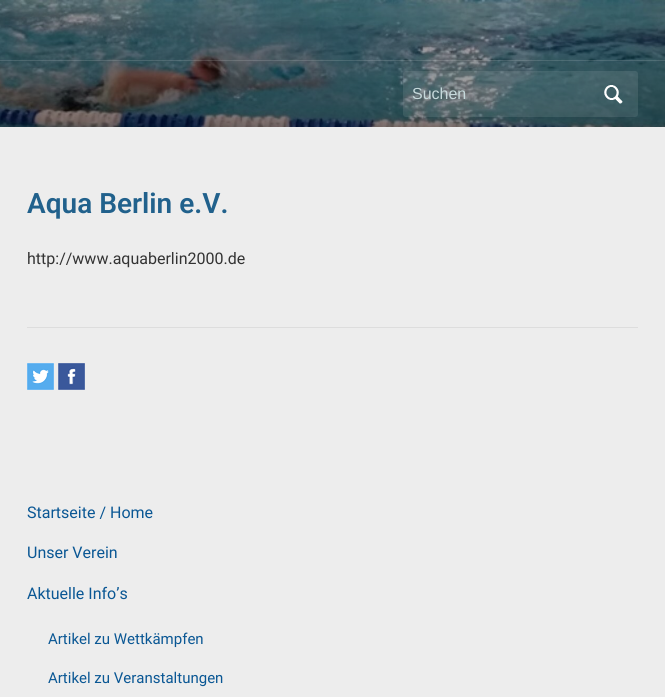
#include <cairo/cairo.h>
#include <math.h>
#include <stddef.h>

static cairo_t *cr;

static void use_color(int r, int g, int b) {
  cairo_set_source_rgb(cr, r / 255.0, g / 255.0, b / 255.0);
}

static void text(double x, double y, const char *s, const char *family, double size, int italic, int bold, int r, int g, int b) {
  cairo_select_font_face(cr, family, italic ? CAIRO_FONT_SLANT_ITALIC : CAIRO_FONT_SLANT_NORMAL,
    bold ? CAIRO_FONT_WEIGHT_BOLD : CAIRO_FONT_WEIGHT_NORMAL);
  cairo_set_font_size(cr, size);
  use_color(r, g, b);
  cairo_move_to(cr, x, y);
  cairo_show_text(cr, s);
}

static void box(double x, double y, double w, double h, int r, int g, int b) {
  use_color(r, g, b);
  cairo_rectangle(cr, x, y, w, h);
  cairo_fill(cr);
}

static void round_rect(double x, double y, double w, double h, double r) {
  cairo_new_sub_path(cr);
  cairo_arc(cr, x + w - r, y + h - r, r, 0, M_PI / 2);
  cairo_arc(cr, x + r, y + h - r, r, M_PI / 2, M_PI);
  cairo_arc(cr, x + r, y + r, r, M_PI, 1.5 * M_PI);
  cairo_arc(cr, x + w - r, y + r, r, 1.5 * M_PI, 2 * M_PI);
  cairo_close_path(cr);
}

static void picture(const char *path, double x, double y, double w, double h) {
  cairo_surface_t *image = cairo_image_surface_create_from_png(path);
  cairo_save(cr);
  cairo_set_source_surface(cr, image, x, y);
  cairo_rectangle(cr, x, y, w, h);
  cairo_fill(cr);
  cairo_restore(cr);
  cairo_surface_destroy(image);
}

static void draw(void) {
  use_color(237, 237, 237);
  cairo_paint(cr);
  picture("img_01.png", 0, 0, 665, 127);
  cairo_set_source_rgba(cr, 1, 1, 1, 0.13);
  cairo_rectangle(cr, 0, 60, 665, 1);
  cairo_fill(cr);
  cairo_set_source_rgba(cr, 1, 1, 1, 0.1);
  round_rect(403, 71, 235, 46, 3);
  cairo_fill(cr);
  picture("img_02.png", 604, 85, 19, 19);
  box(27, 327, 611, 1, 221, 221, 221);
  picture("img_03.png", 27, 363, 27, 27);
  picture("img_04.png", 58, 363, 27, 27);
  text(412, 99, "Suchen", "Liberation Sans", 16, 0, 0, 198, 217, 219);
  text(27, 213, "Aqua Berlin e.V.", "Roboto SemiBold", 28, 0, 0, 33, 97, 140);
  text(27, 264, "http://www.aquaberlin2000.de", "Roboto", 16, 0, 0, 51, 51, 51);
  text(27, 518, "Startseite / Home", "Roboto", 16, 0, 0, 10, 87, 148);
  text(27, 558, "Unser Verein", "Roboto", 16, 0, 0, 10, 87, 148);
  text(27, 599, "Aktuelle Info’s", "Roboto", 16, 0, 0, 10, 87, 148);
  text(48, 644, "Artikel zu Wettkämpfen", "Roboto", 15, 0, 0, 10, 87, 148);
  text(48, 683, "Artikel zu Veranstaltungen", "Roboto", 15, 0, 0, 10, 87, 148);
}

int main(void) {
  cairo_surface_t *surface = cairo_image_surface_create(CAIRO_FORMAT_RGB24, 665, 697);
  cr = cairo_create(surface);
  cairo_font_options_t *options = cairo_font_options_create();
  cairo_font_options_set_hint_metrics(options, CAIRO_HINT_METRICS_OFF);
  cairo_font_options_set_hint_style(options, CAIRO_HINT_STYLE_NONE);
  cairo_set_font_options(cr, options);
  cairo_set_miter_limit(cr, 4);
  draw();
  cairo_surface_write_to_png(surface, "out.png");
  cairo_font_options_destroy(options);
  cairo_destroy(cr);
  cairo_surface_destroy(surface);
  return 0;
}
